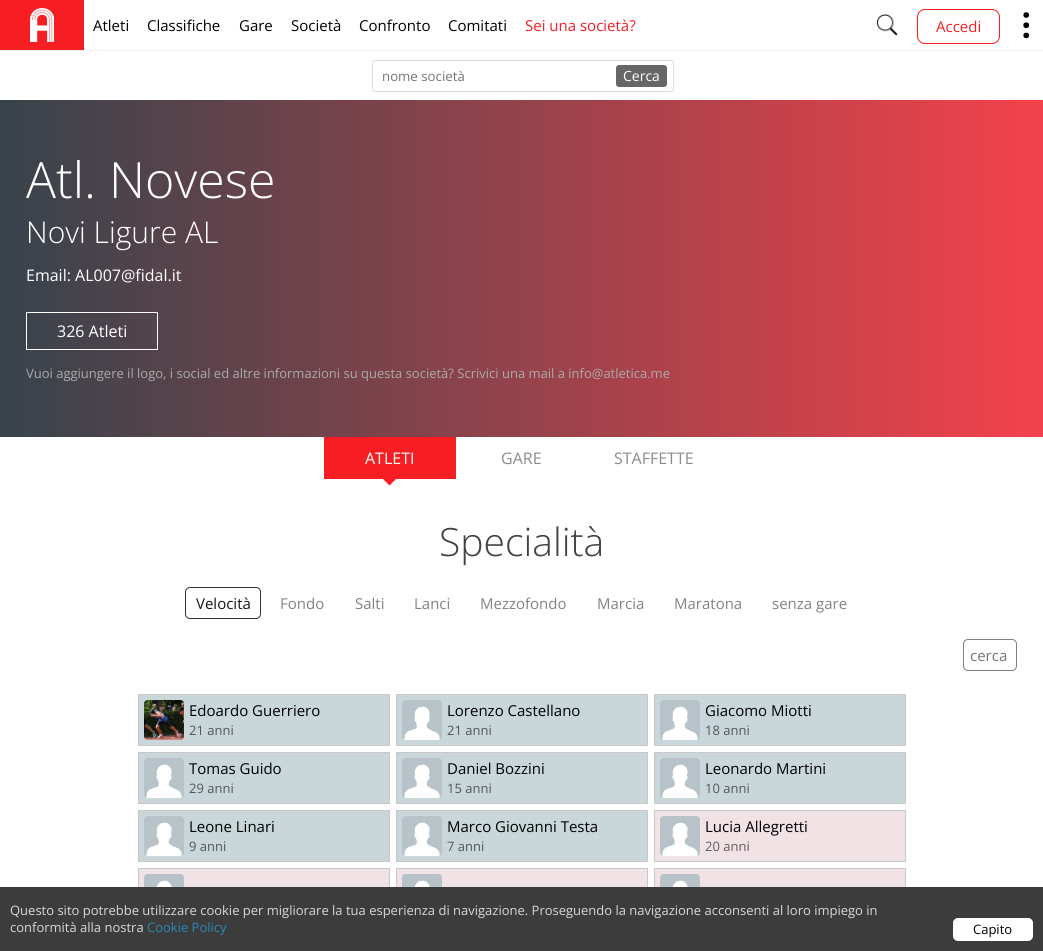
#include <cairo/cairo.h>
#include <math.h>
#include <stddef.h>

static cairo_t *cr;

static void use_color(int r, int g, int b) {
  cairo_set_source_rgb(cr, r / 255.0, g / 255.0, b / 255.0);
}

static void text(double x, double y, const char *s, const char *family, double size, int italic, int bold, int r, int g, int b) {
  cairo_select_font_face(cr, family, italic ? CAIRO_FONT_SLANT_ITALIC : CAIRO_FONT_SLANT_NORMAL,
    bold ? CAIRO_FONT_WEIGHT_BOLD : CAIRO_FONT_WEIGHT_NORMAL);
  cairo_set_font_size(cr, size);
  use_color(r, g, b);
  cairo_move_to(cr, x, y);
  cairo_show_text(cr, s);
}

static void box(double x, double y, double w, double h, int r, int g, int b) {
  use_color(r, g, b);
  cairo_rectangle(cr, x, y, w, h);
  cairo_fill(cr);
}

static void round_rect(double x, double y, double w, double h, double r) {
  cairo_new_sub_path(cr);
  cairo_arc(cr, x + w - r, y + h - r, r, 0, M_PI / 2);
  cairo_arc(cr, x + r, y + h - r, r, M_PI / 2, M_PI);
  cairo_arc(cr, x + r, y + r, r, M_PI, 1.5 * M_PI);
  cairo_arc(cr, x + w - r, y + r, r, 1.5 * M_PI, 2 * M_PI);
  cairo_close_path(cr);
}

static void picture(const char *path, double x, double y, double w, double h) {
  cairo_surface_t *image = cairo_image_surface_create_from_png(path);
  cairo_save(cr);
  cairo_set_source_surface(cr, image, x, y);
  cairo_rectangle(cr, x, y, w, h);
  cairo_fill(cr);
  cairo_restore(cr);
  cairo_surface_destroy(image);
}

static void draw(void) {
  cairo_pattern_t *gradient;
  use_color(255, 255, 255);
  cairo_paint(cr);
  box(0, 50, 1043, 1, 240, 240, 240);
  box(0, 0, 84, 50, 246, 30, 35);
  picture("img_01.png", 30, 8, 24, 34);
  picture("img_02.png", 876, 14, 22, 22);
  round_rect(917.5, 9.5, 82, 34, 7.5);
  cairo_set_line_width(cr, 1);
  cairo_stroke(cr);
  picture("img_03.png", 1023, 12, 8, 27);
  round_rect(372.5, 60.5, 301, 31, 2.5);
  use_color(220, 220, 220);
  cairo_stroke(cr);
  use_color(102, 102, 102);
  round_rect(616, 65, 51, 22, 3);
  cairo_fill(cr);
  gradient = cairo_pattern_create_linear(1043, 269, 0, 268);
  cairo_pattern_add_color_stop_rgba(gradient, 0, 0.953, 0.259, 0.294, 1);
  cairo_pattern_add_color_stop_rgba(gradient, 1, 0.216, 0.263, 0.294, 1);
  cairo_set_source(cr, gradient);
  cairo_pattern_destroy(gradient);
  cairo_rectangle(cr, 0, 100, 1043, 337);
  cairo_fill(cr);
  cairo_rectangle(cr, 26.5, 312.5, 131, 37);
  use_color(255, 255, 255);
  cairo_stroke(cr);
  box(324, 437, 132, 42, 246, 30, 35);
  cairo_new_path(cr);
  cairo_move_to(cr, 389.5, 471.5);
  cairo_line_to(cr, 396.5, 478.5);
  cairo_line_to(cr, 389.5, 485.5);
  cairo_line_to(cr, 382.5, 478.5);
  cairo_close_path(cr);
  cairo_fill(cr);
  round_rect(185.5, 587.5, 75, 31, 4.5);
  use_color(51, 51, 51);
  cairo_stroke(cr);
  round_rect(963.5, 639.5, 53, 31, 4.5);
  use_color(128, 128, 128);
  cairo_stroke(cr);
  use_color(201, 215, 218);
  cairo_rectangle(cr, 138.5, 694.5, 251, 51);
  cairo_fill_preserve(cr);
  use_color(200, 200, 200);
  cairo_stroke(cr);
  picture("img_04.png", 144, 700, 40, 40);
  use_color(201, 215, 218);
  cairo_rectangle(cr, 396.5, 694.5, 251, 51);
  cairo_fill_preserve(cr);
  use_color(200, 200, 200);
  cairo_stroke(cr);
  picture("img_05.png", 402, 700, 40, 40);
  use_color(201, 215, 218);
  cairo_rectangle(cr, 654.5, 694.5, 251, 51);
  cairo_fill_preserve(cr);
  use_color(200, 200, 200);
  cairo_stroke(cr);
  picture("img_06.png", 660, 700, 40, 40);
  use_color(201, 215, 218);
  cairo_rectangle(cr, 138.5, 752.5, 251, 51);
  cairo_fill_preserve(cr);
  use_color(200, 200, 200);
  cairo_stroke(cr);
  picture("img_07.png", 144, 758, 40, 40);
  use_color(201, 215, 218);
  cairo_rectangle(cr, 396.5, 752.5, 251, 51);
  cairo_fill_preserve(cr);
  use_color(200, 200, 200);
  cairo_stroke(cr);
  picture("img_05.png", 402, 758, 40, 40);
  use_color(201, 215, 218);
  cairo_rectangle(cr, 654.5, 752.5, 251, 51);
  cairo_fill_preserve(cr);
  use_color(200, 200, 200);
  cairo_stroke(cr);
  picture("img_06.png", 660, 758, 40, 40);
  use_color(201, 215, 218);
  cairo_rectangle(cr, 138.5, 810.5, 251, 51);
  cairo_fill_preserve(cr);
  use_color(200, 200, 200);
  cairo_stroke(cr);
  picture("img_07.png", 144, 816, 40, 40);
  use_color(201, 215, 218);
  cairo_rectangle(cr, 396.5, 810.5, 251, 51);
  cairo_fill_preserve(cr);
  use_color(200, 200, 200);
  cairo_stroke(cr);
  picture("img_05.png", 402, 816, 40, 40);
  use_color(241, 226, 229);
  cairo_rectangle(cr, 654.5, 810.5, 251, 51);
  cairo_fill_preserve(cr);
  use_color(200, 200, 200);
  cairo_stroke(cr);
  picture("img_08.png", 660, 816, 40, 40);
  box(139, 869, 250, 18, 241, 226, 229);
  cairo_rectangle(cr, 138.5, 868.5, 251, 51);
  use_color(200, 200, 200);
  cairo_stroke(cr);
  picture("img_09.png", 144, 874, 40, 13);
  box(397, 869, 250, 18, 241, 226, 229);
  cairo_rectangle(cr, 396.5, 868.5, 251, 51);
  use_color(200, 200, 200);
  cairo_stroke(cr);
  picture("img_10.png", 402, 874, 40, 13);
  box(655, 869, 250, 18, 241, 226, 229);
  cairo_rectangle(cr, 654.5, 868.5, 251, 51);
  use_color(200, 200, 200);
  cairo_stroke(cr);
  picture("img_10.png", 660, 874, 40, 13);
  box(0, 887, 1043, 64, 60, 60, 60);
  use_color(255, 255, 255);
  round_rect(953, 918, 80, 23, 5);
  cairo_fill(cr);
  text(93, 31, "Atleti", "Open Sans", 15, 0, 0, 0, 0, 0);
  text(147, 31, "Classifiche", "Open Sans", 15, 0, 0, 0, 0, 0);
  text(239, 31, "Gare", "Open Sans", 15, 0, 0, 0, 0, 0);
  text(291, 31, "Società", "Open Sans", 15, 0, 0, 0, 0, 0);
  text(359, 31, "Confronto", "Open Sans", 15, 0, 0, 0, 0, 0);
  text(448, 31, "Comitati", "Open Sans", 15, 0, 0, 0, 0, 0);
  text(525, 31, "Sei una società?", "Open Sans", 15, 0, 0, 246, 30, 35);
  text(936, 32, "Accedi", "Open Sans", 15, 0, 0, 246, 30, 35);
  text(382, 81, "nome società", "Open Sans", 13.25, 0, 0, 117, 117, 117);
  text(623, 81, "Cerca", "Open Sans", 14, 0, 0, 255, 255, 255);
  text(26, 198, "Atl. Novese", "Open Sans Light", 50, 0, 0, 255, 255, 255);
  text(26, 243, "Novi Ligure AL", "Open Sans Light", 30, 0, 0, 255, 255, 255);
  text(26, 281, "Email: AL007@fidal.it", "Open Sans", 16, 0, 0, 255, 255, 255);
  text(57, 337, "326 Atleti", "Open Sans", 16, 0, 0, 255, 255, 255);
  text(26, 378, "Vuoi aggiungere il logo, i social ed altre informazioni su questa società? Scrivici una mail a info@atletica.me", "Open Sans", 13, 0, 0, 170, 170, 170);
  text(365, 464, "ATLETI", "Open Sans", 16, 0, 0, 255, 255, 255);
  text(501, 464, "GARE", "Open Sans", 16, 0, 0, 140, 140, 140);
  text(614, 464, "STAFFETTE", "Open Sans", 16, 0, 0, 140, 140, 140);
  text(439, 556, "Specialità", "Open Sans Light", 39, 0, 0, 66, 66, 66);
  text(196, 609, "Velocità", "Open Sans", 15, 0, 0, 20, 20, 20);
  text(280, 609, "Fondo", "Open Sans", 15, 0, 0, 130, 130, 130);
  text(355, 609, "Salti", "Open Sans", 15, 0, 0, 130, 130, 130);
  text(414, 609, "Lanci", "Open Sans", 15, 0, 0, 130, 130, 130);
  text(480, 609, "Mezzofondo", "Open Sans", 15, 0, 0, 130, 130, 130);
  text(597, 609, "Marcia", "Open Sans", 15, 0, 0, 130, 130, 130);
  text(674, 609, "Maratona", "Open Sans", 15, 0, 0, 130, 130, 130);
  text(772, 609, "senza gare", "Open Sans", 15, 0, 0, 130, 130, 130);
  text(970, 661, "cerca", "Open Sans", 15, 0, 0, 117, 117, 117);
  text(189, 716, "Edoardo Guerriero", "Open Sans", 15, 0, 0, 0, 0, 0);
  text(189, 735, "21 anni", "Open Sans", 13, 0, 0, 80, 86, 87);
  text(447, 716, "Lorenzo Castellano", "Open Sans", 15, 0, 0, 0, 0, 0);
  text(447, 735, "21 anni", "Open Sans", 13, 0, 0, 80, 86, 87);
  text(705, 716, "Giacomo Miotti", "Open Sans", 15, 0, 0, 0, 0, 0);
  text(705, 735, "18 anni", "Open Sans", 13, 0, 0, 80, 86, 87);
  text(189, 774, "Tomas Guido", "Open Sans", 15, 0, 0, 0, 0, 0);
  text(189, 793, "29 anni", "Open Sans", 13, 0, 0, 80, 86, 87);
  text(447, 774, "Daniel Bozzini", "Open Sans", 15, 0, 0, 0, 0, 0);
  text(447, 793, "15 anni", "Open Sans", 13, 0, 0, 80, 86, 87);
  text(705, 774, "Leonardo Martini", "Open Sans", 15, 0, 0, 0, 0, 0);
  text(705, 793, "10 anni", "Open Sans", 13, 0, 0, 80, 86, 87);
  text(189, 832, "Leone Linari", "Open Sans", 15, 0, 0, 0, 0, 0);
  text(189, 851, "9 anni", "Open Sans", 13, 0, 0, 80, 86, 87);
  text(447, 832, "Marco Giovanni Testa", "Open Sans", 15, 0, 0, 0, 0, 0);
  text(447, 851, "7 anni", "Open Sans", 13, 0, 0, 80, 86, 87);
  text(705, 832, "Lucia Allegretti", "Open Sans", 15, 0, 0, 0, 0, 0);
  text(705, 851, "20 anni", "Open Sans", 13, 0, 0, 96, 90, 92);
  text(10, 915, "Questo sito potrebbe utilizzare cookie per migliorare la tua esperienza di navigazione. Proseguendo la navigazione acconsenti al loro impiego in", "Open Sans", 13, 0, 0, 216, 216, 216);
  text(10, 932, "conformità alla nostra", "Open Sans", 13, 0, 0, 216, 216, 216);
  text(147, 932, "Cookie Policy", "Open Sans", 13, 0, 0, 41, 137, 182);
  text(973, 934, "Capito", "Open Sans", 13, 0, 0, 0, 0, 0);
}

int main(void) {
  cairo_surface_t *surface = cairo_image_surface_create(CAIRO_FORMAT_RGB24, 1043, 951);
  cr = cairo_create(surface);
  cairo_font_options_t *options = cairo_font_options_create();
  cairo_font_options_set_hint_metrics(options, CAIRO_HINT_METRICS_OFF);
  cairo_font_options_set_hint_style(options, CAIRO_HINT_STYLE_NONE);
  cairo_set_font_options(cr, options);
  cairo_set_miter_limit(cr, 4);
  draw();
  cairo_surface_write_to_png(surface, "out.png");
  cairo_font_options_destroy(options);
  cairo_destroy(cr);
  cairo_surface_destroy(surface);
  return 0;
}
